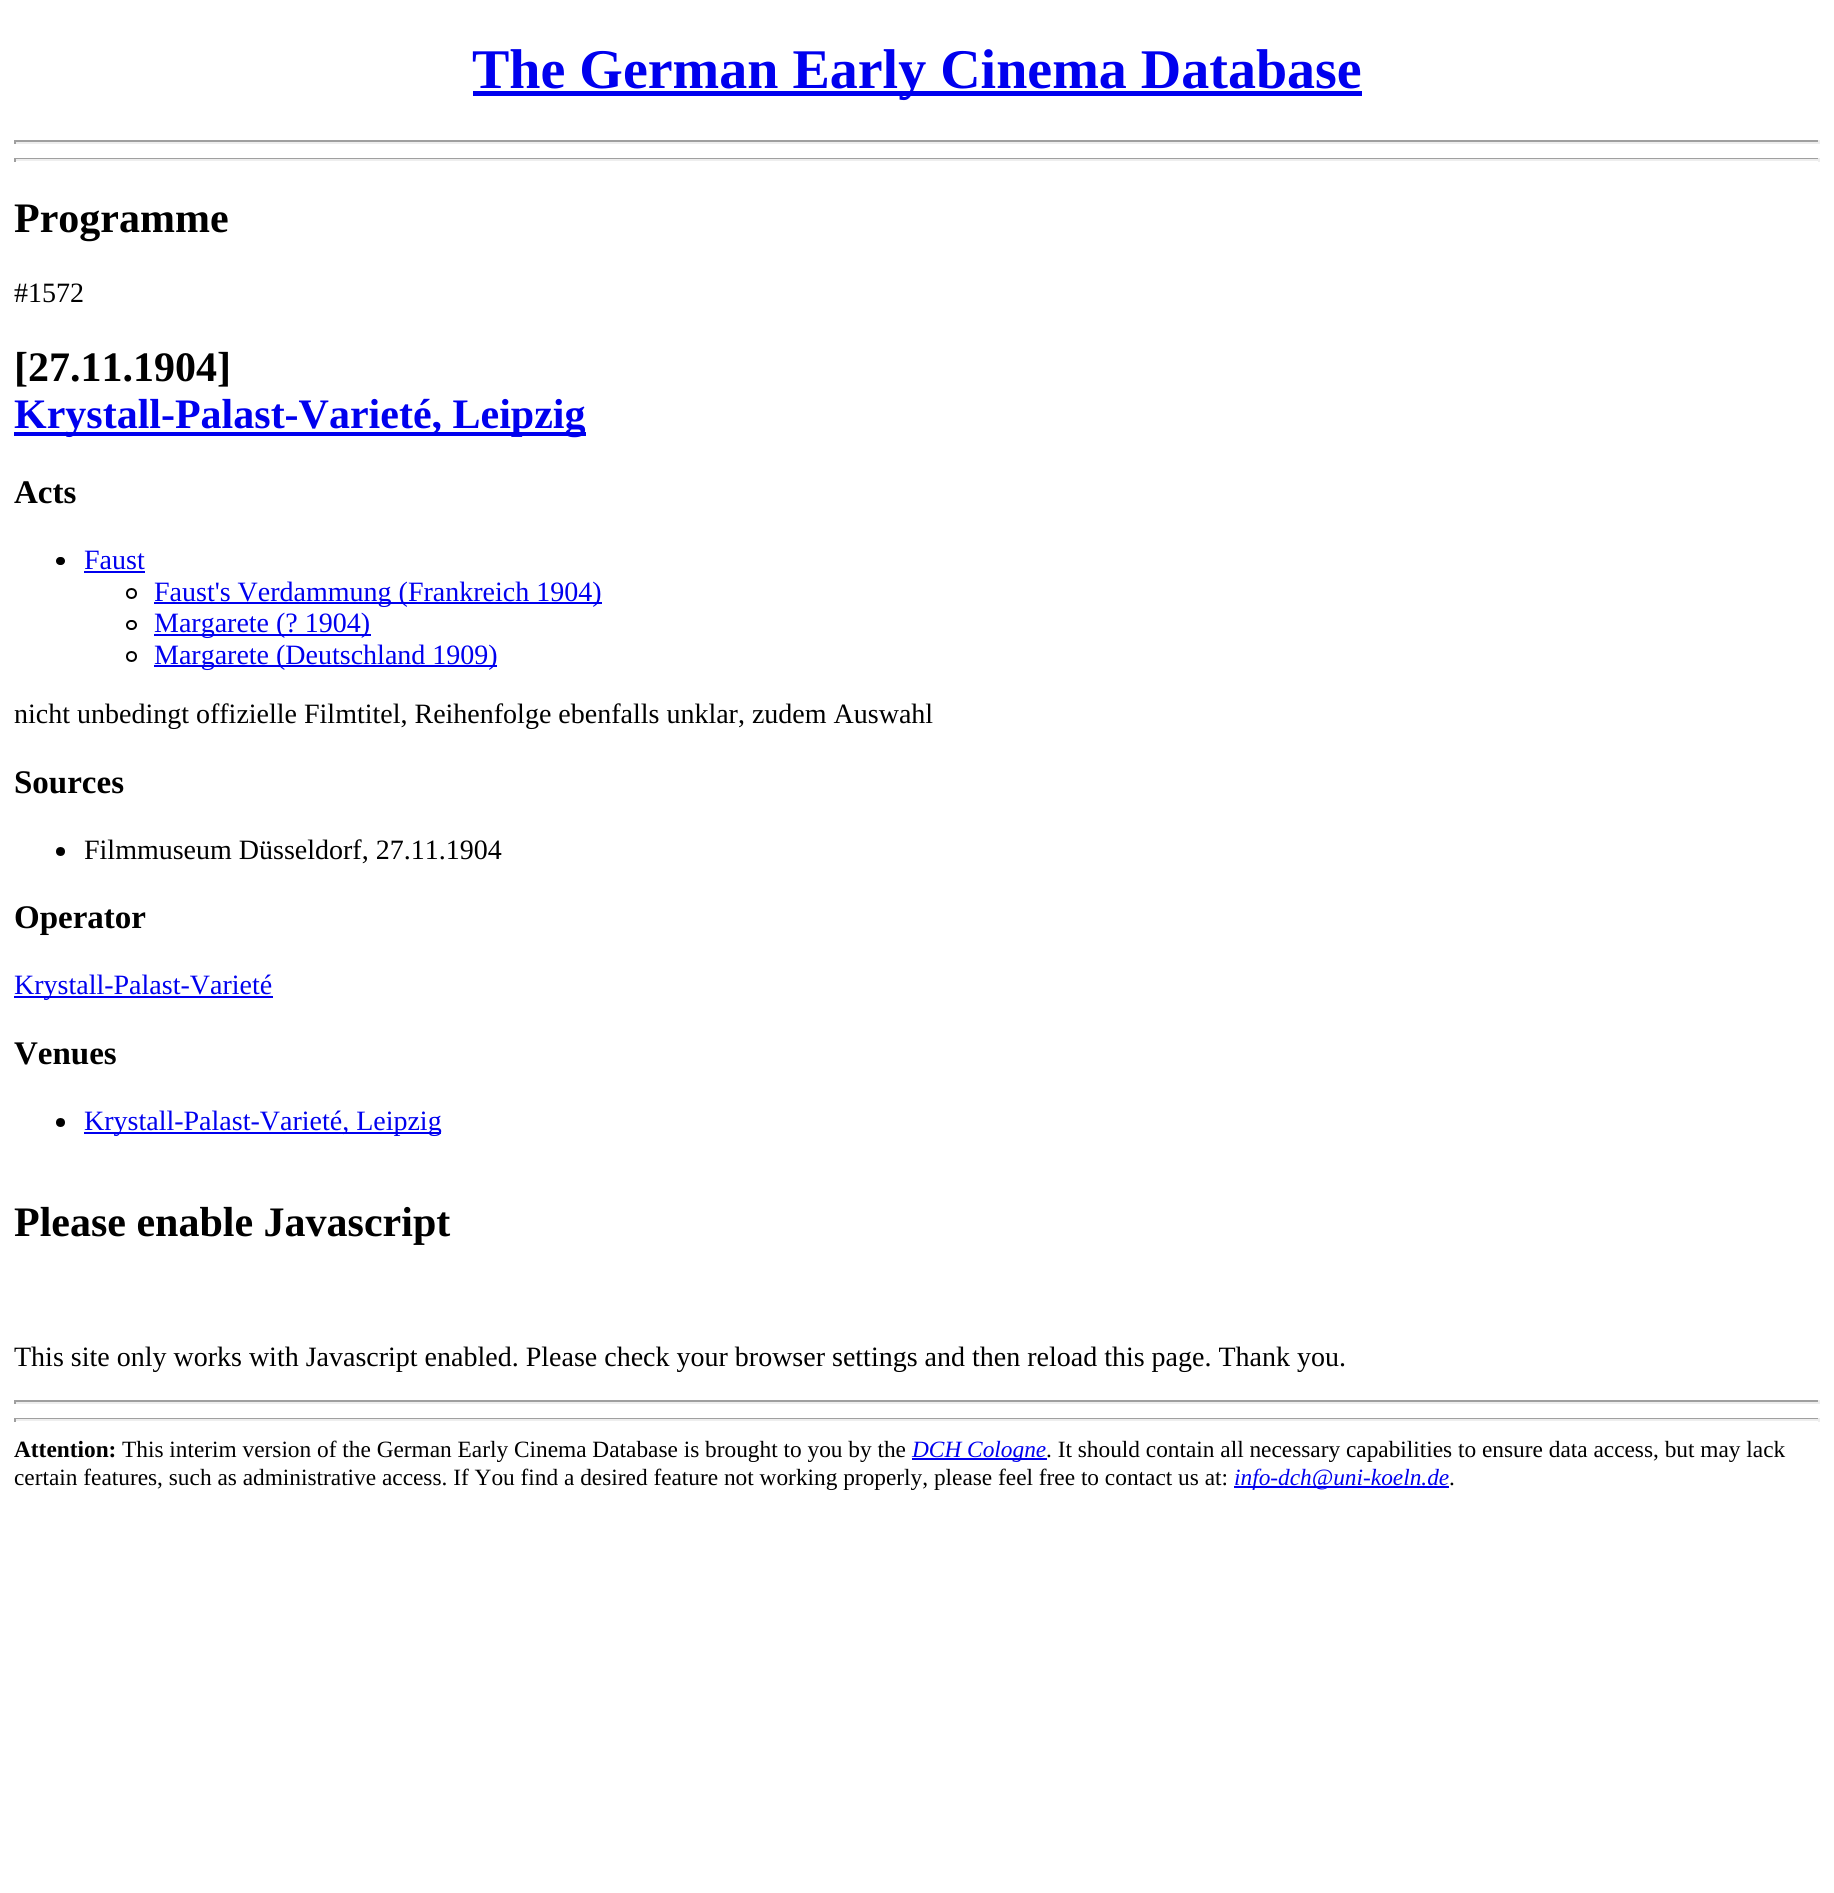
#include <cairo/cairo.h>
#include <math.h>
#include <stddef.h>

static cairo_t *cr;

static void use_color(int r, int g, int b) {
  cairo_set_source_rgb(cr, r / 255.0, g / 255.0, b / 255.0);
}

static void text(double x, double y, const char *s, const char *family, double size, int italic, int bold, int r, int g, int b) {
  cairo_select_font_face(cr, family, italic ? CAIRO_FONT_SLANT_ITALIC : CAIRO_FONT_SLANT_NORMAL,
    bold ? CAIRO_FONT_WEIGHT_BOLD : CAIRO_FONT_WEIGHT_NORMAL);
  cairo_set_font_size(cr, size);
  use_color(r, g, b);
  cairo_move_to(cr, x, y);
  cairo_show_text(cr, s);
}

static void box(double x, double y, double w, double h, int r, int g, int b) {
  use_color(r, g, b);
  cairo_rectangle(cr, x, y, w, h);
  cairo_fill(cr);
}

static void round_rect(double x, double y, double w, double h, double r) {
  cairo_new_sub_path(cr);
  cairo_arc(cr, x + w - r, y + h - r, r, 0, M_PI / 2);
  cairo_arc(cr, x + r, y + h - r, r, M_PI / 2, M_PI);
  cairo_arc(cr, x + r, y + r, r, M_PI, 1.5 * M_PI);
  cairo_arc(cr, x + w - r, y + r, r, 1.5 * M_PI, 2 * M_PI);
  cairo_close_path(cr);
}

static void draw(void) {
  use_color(255, 255, 255);
  cairo_paint(cr);
  box(473, 91, 889, 5, 0, 0, 238);
  box(14, 140, 1806, 2, 159, 159, 159);
  box(1818, 140, 2, 4, 238, 238, 238);
  box(14, 142, 1806, 2, 238, 238, 238);
  box(14, 140, 2, 4, 159, 159, 159);
  box(14, 158, 1806, 1, 159, 159, 159);
  box(1818, 158, 2, 4, 238, 238, 238);
  box(14, 159, 1806, 2, 238, 238, 238);
  box(14, 158, 2, 4, 159, 159, 159);
  box(14, 432, 572, 4, 0, 0, 238);
  use_color(0, 0, 0);
  round_rect(56, 557, 9, 8, 4);
  cairo_fill(cr);
  box(84, 571, 61, 2, 0, 0, 238);
  cairo_arc(cr, 131.5, 593.5, 4.5, 0, 2 * M_PI);
  use_color(0, 0, 0);
  cairo_stroke(cr);
  box(154, 602, 448, 2, 0, 0, 238);
  round_rect(127, 621, 9, 8, 4);
  use_color(0, 0, 0);
  cairo_stroke(cr);
  box(154, 634, 217, 2, 0, 0, 238);
  cairo_arc(cr, 131.5, 656.5, 4.5, 0, 2 * M_PI);
  use_color(0, 0, 0);
  cairo_stroke(cr);
  box(154, 665, 343, 2, 0, 0, 238);
  use_color(0, 0, 0);
  cairo_arc(cr, 60.5, 851.5, 4.5, 0, 2 * M_PI);
  cairo_fill(cr);
  box(14, 996, 259, 2, 0, 0, 238);
  use_color(0, 0, 0);
  cairo_arc(cr, 60.5, 1122.5, 4.5, 0, 2 * M_PI);
  cairo_fill(cr);
  box(84, 1132, 357, 2, 0, 0, 238);
  box(14, 1400, 1806, 2, 159, 159, 159);
  box(1818, 1400, 2, 4, 238, 238, 238);
  box(14, 1402, 1806, 2, 238, 238, 238);
  box(14, 1400, 2, 4, 159, 159, 159);
  box(14, 1418, 1806, 1, 159, 159, 159);
  box(1818, 1418, 2, 4, 238, 238, 238);
  box(14, 1419, 1806, 2, 238, 238, 238);
  box(14, 1418, 2, 4, 159, 159, 159);
  box(912, 1458, 135, 2, 0, 0, 238);
  box(1234, 1486, 215, 2, 0, 0, 238);
  text(472, 88, "The German Early Cinema Database", "Liberation Serif", 56, 0, 1, 0, 0, 238);
  text(14, 232, "Programme", "Liberation Serif", 42, 0, 1, 0, 0, 0);
  text(14, 302, "#1572", "Liberation Serif", 28, 0, 0, 0, 0, 0);
  text(14, 381, "[27.11.1904]", "Liberation Serif", 42, 0, 1, 0, 0, 0);
  text(14, 428, "Krystall-Palast-Varieté, Leipzig", "Liberation Serif", 42, 0, 1, 0, 0, 238);
  text(14, 503, "Acts", "Liberation Serif", 33, 0, 1, 0, 0, 0);
  text(84, 569, "Faust", "Liberation Serif", 28, 0, 0, 0, 0, 238);
  text(154, 601, "Faust's Verdammung (Frankreich 1904)", "Liberation Serif", 28, 0, 0, 0, 0, 238);
  text(154, 632, "Margarete (? 1904)", "Liberation Serif", 28, 0, 0, 0, 0, 238);
  text(154, 664, "Margarete (Deutschland 1909)", "Liberation Serif", 28, 0, 0, 0, 0, 238);
  text(14, 723, "nicht unbedingt offizielle Filmtitel, Reihenfolge ebenfalls unklar, zudem Auswahl", "Liberation Serif", 28, 0, 0, 0, 0, 0);
  text(14, 793, "Sources", "Liberation Serif", 33, 0, 1, 0, 0, 0);
  text(84, 859, "Filmmuseum Düsseldorf, 27.11.1904", "Liberation Serif", 28, 0, 0, 0, 0, 0);
  text(14, 928, "Operator", "Liberation Serif", 33, 0, 1, 0, 0, 0);
  text(14, 994, "Krystall-Palast-Varieté", "Liberation Serif", 28, 0, 0, 0, 0, 238);
  text(14, 1064, "Venues", "Liberation Serif", 33, 0, 1, 0, 0, 0);
  text(84, 1130, "Krystall-Palast-Varieté, Leipzig", "Liberation Serif", 28, 0, 0, 0, 0, 238);
  text(14, 1236, "Please enable Javascript", "Liberation Serif", 42, 0, 1, 0, 0, 0);
  text(14, 1366, "This site only works with Javascript enabled. Please check your browser settings and then reload this page. Thank you.", "Liberation Serif", 28, 0, 0, 0, 0, 0);
  text(14, 1457, "Attention:", "Liberation Serif", 23.33, 0, 1, 0, 0, 0);
  text(122, 1457, "This interim version of the German Early Cinema Database is brought to you by the", "Liberation Serif", 23.33, 0, 0, 0, 0, 0);
  text(912, 1457, "DCH Cologne", "Liberation Serif", 23.33, 1, 0, 0, 0, 238);
  text(1046, 1457, ". It should contain all necessary capabilities to ensure data access, but may lack", "Liberation Serif", 23.33, 0, 0, 0, 0, 0);
  text(14, 1485, "certain features, such as administrative access. If You find a desired feature not working properly, please feel free to contact us at:", "Liberation Serif", 23.33, 0, 0, 0, 0, 0);
  text(1234, 1485, "info-dch@uni-koeln.de", "Liberation Serif", 23.33, 1, 0, 0, 0, 238);
  text(1449, 1485, ".", "Liberation Serif", 23.33, 0, 0, 0, 0, 0);
}

int main(void) {
  cairo_surface_t *surface = cairo_image_surface_create(CAIRO_FORMAT_RGB24, 1834, 1893);
  cr = cairo_create(surface);
  cairo_font_options_t *options = cairo_font_options_create();
  cairo_font_options_set_hint_metrics(options, CAIRO_HINT_METRICS_OFF);
  cairo_font_options_set_hint_style(options, CAIRO_HINT_STYLE_NONE);
  cairo_set_font_options(cr, options);
  cairo_set_miter_limit(cr, 4);
  draw();
  cairo_surface_write_to_png(surface, "out.png");
  cairo_font_options_destroy(options);
  cairo_destroy(cr);
  cairo_surface_destroy(surface);
  return 0;
}
